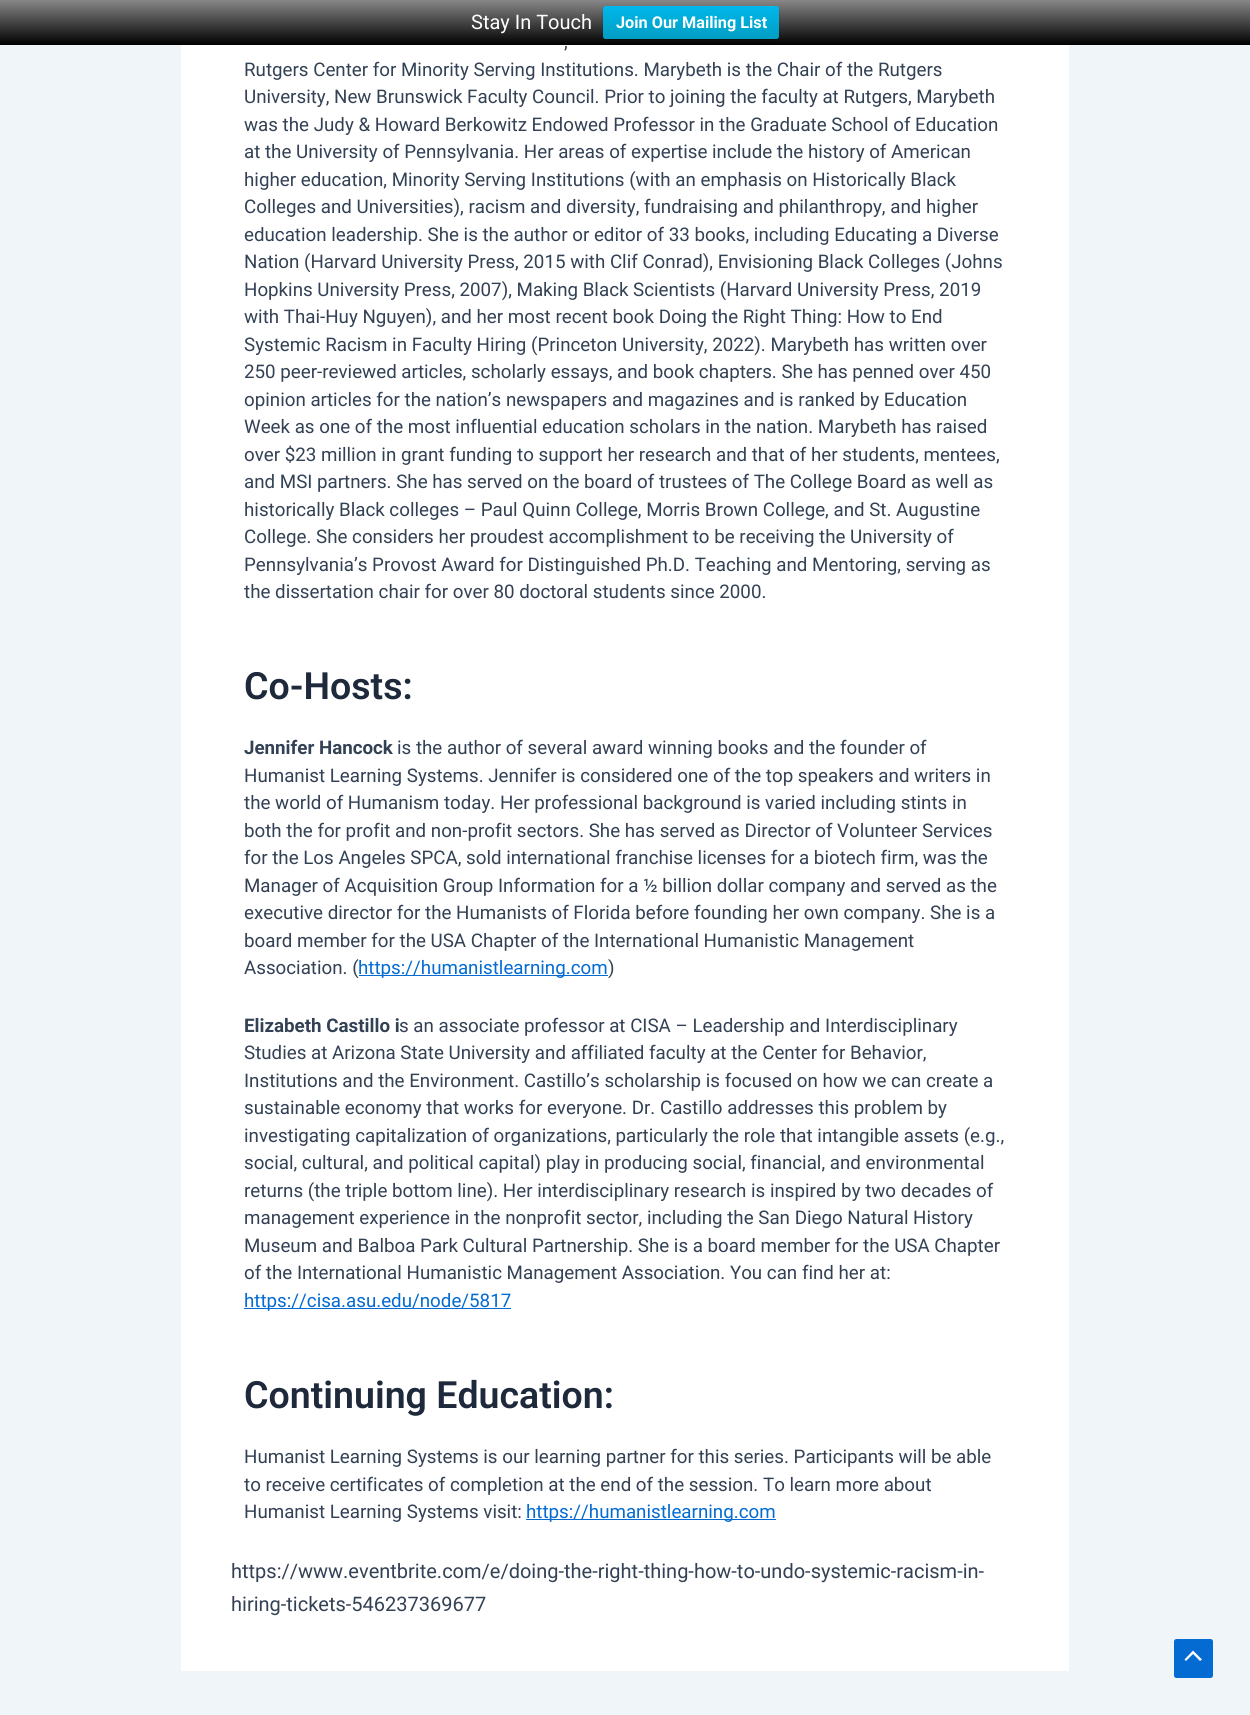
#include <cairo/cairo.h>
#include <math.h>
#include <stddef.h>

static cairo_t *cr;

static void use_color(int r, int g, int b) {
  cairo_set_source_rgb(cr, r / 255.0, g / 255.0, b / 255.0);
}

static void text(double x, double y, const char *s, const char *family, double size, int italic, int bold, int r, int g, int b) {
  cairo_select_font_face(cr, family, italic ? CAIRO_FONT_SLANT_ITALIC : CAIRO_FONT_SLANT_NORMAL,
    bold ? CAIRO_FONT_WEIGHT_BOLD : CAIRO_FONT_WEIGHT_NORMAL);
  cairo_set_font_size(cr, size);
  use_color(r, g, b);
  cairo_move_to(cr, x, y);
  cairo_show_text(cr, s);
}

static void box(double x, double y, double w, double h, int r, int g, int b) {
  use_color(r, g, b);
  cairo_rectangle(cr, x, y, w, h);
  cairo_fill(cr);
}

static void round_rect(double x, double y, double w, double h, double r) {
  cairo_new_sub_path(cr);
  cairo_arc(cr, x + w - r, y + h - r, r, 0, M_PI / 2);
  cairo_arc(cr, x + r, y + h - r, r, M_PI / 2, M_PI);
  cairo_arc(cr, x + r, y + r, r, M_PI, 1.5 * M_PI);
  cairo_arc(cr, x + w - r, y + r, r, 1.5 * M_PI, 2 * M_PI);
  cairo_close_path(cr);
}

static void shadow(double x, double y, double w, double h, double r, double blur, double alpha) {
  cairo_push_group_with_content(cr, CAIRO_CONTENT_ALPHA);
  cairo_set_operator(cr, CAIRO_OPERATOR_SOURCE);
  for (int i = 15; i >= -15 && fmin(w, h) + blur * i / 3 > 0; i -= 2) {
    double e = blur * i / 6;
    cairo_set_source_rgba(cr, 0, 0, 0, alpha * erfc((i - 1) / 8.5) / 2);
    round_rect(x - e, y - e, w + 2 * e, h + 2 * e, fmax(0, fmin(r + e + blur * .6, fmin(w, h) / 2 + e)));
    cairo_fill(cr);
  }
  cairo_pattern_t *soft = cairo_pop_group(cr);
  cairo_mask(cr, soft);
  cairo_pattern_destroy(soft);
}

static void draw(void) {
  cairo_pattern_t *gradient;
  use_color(240, 245, 250);
  cairo_paint(cr);
  gradient = cairo_pattern_create_linear(625, 0, 625, 45);
  cairo_pattern_add_color_stop_rgba(gradient, 0, 0.533, 0.533, 0.533, 1);
  cairo_pattern_add_color_stop_rgba(gradient, 1, 0, 0, 0, 1);
  cairo_set_source(cr, gradient);
  cairo_pattern_destroy(gradient);
  cairo_rectangle(cr, 0, 0, 1250, 45);
  cairo_fill(cr);
  use_color(0, 0, 0);
  shadow(603, 8, 176, 32, 2.5, 1, 0.2);
  gradient = cairo_pattern_create_linear(691, 6.2, 691, 39);
  cairo_pattern_add_color_stop_rgba(gradient, 0, 0, 0.718, 0.918, 1);
  cairo_pattern_add_color_stop_rgba(gradient, 1, 0, 0.62, 0.765, 1);
  cairo_set_source(cr, gradient);
  cairo_pattern_destroy(gradient);
  round_rect(603, 6, 176, 33, 2.5);
  cairo_fill(cr);
  box(181, 45, 888, 1626, 255, 255, 255);
  box(359, 975, 249, 1, 4, 107, 210);
  box(244, 1308, 267, 1, 4, 107, 210);
  box(526, 1519, 250, 1, 4, 107, 210);
  round_rect(1174, 1639, 39, 39, 2.5);
  cairo_fill(cr);
  use_color(255, 255, 255);
  cairo_new_path(cr);
  cairo_move_to(cr, 1202, 1659.5);
  cairo_line_to(cr, 1193, 1650.5);
  cairo_line_to(cr, 1184.5, 1659.5);
  cairo_line_to(cr, 1186, 1661);
  cairo_line_to(cr, 1193, 1654);
  cairo_line_to(cr, 1200, 1661);
  cairo_close_path(cr);
  cairo_fill(cr);
  text(471, 29, "Stay In Touch", "Roboto", 20, 0, 0, 255, 255, 255);
  text(616, 28, "Join Our Mailing List", "Roboto", 16.25, 0, 1, 255, 255, 255);
  text(564, 48, ",", "Roboto", 18.75, 0, 0, 51, 65, 85);
  text(244, 76, "Rutgers Center for Minority Serving Institutions. Marybeth is the Chair of the Rutgers", "Roboto", 18.75, 0, 0, 51, 65, 85);
  text(244, 103, "University, New Brunswick Faculty Council. Prior to joining the faculty at Rutgers, Marybeth", "Roboto", 18.75, 0, 0, 51, 65, 85);
  text(244, 131, "was the Judy & Howard Berkowitz Endowed Professor in the Graduate School of Education", "Roboto", 18.75, 0, 0, 51, 65, 85);
  text(244, 158, "at the University of Pennsylvania. Her areas of expertise include the history of American", "Roboto", 18.75, 0, 0, 51, 65, 85);
  text(244, 186, "higher education, Minority Serving Institutions (with an emphasis on Historically Black", "Roboto", 18.75, 0, 0, 51, 65, 85);
  text(244, 213, "Colleges and Universities), racism and diversity, fundraising and philanthropy, and higher", "Roboto", 18.75, 0, 0, 51, 65, 85);
  text(244, 241, "education leadership. She is the author or editor of 33 books, including Educating a Diverse", "Roboto", 18.75, 0, 0, 51, 65, 85);
  text(244, 268, "Nation (Harvard University Press, 2015 with Clif Conrad), Envisioning Black Colleges (Johns", "Roboto", 18.75, 0, 0, 51, 65, 85);
  text(244, 296, "Hopkins University Press, 2007), Making Black Scientists (Harvard University Press, 2019", "Roboto", 18.75, 0, 0, 51, 65, 85);
  text(244, 323, "with Thai-Huy Nguyen), and her most recent book Doing the Right Thing: How to End", "Roboto", 18.75, 0, 0, 51, 65, 85);
  text(244, 351, "Systemic Racism in Faculty Hiring (Princeton University, 2022). Marybeth has written over", "Roboto", 18.75, 0, 0, 51, 65, 85);
  text(244, 378, "250 peer-reviewed articles, scholarly essays, and book chapters. She has penned over 450", "Roboto", 18.75, 0, 0, 51, 65, 85);
  text(244, 406, "opinion articles for the nation’s newspapers and magazines and is ranked by Education", "Roboto", 18.75, 0, 0, 51, 65, 85);
  text(244, 433, "Week as one of the most influential education scholars in the nation. Marybeth has raised", "Roboto", 18.75, 0, 0, 51, 65, 85);
  text(244, 461, "over $23 million in grant funding to support her research and that of her students, mentees,", "Roboto", 18.75, 0, 0, 51, 65, 85);
  text(244, 488, "and MSI partners. She has served on the board of trustees of The College Board as well as", "Roboto", 18.75, 0, 0, 51, 65, 85);
  text(244, 516, "historically Black colleges – Paul Quinn College, Morris Brown College, and St. Augustine", "Roboto", 18.75, 0, 0, 51, 65, 85);
  text(244, 543, "College. She considers her proudest accomplishment to be receiving the University of", "Roboto", 18.75, 0, 0, 51, 65, 85);
  text(244, 571, "Pennsylvania’s Provost Award for Distinguished Ph.D. Teaching and Mentoring, serving as", "Roboto", 18.75, 0, 0, 51, 65, 85);
  text(244, 598, "the dissertation chair for over 80 doctoral students since 2000.", "Roboto", 18.75, 0, 0, 51, 65, 85);
  text(244, 699, "Co-Hosts:", "Roboto SemiBold", 37.5, 0, 0, 30, 41, 59);
  text(244, 754, "Jennifer Hancock", "Roboto", 18.75, 0, 1, 51, 65, 85);
  text(397, 754, "is the author of several award winning books and the founder of", "Roboto", 18.75, 0, 0, 51, 65, 85);
  text(244, 782, "Humanist Learning Systems. Jennifer is considered one of the top speakers and writers in", "Roboto", 18.75, 0, 0, 51, 65, 85);
  text(244, 809, "the world of Humanism today. Her professional background is varied including stints in", "Roboto", 18.75, 0, 0, 51, 65, 85);
  text(244, 837, "both the for profit and non-profit sectors. She has served as Director of Volunteer Services", "Roboto", 18.75, 0, 0, 51, 65, 85);
  text(244, 864, "for the Los Angeles SPCA, sold international franchise licenses for a biotech firm, was the", "Roboto", 18.75, 0, 0, 51, 65, 85);
  text(244, 892, "Manager of Acquisition Group Information for a ½ billion dollar company and served as the", "Roboto", 18.75, 0, 0, 51, 65, 85);
  text(244, 919, "executive director for the Humanists of Florida before founding her own company. She is a", "Roboto", 18.75, 0, 0, 51, 65, 85);
  text(244, 947, "board member for the USA Chapter of the International Humanistic Management", "Roboto", 18.75, 0, 0, 51, 65, 85);
  text(244, 974, "Association. (", "Roboto", 18.75, 0, 0, 51, 65, 85);
  text(358, 974, "https://humanistlearning.com", "Roboto", 18.75, 0, 0, 4, 107, 210);
  text(608, 974, ")", "Roboto", 18.75, 0, 0, 51, 65, 85);
  text(244, 1032, "Elizabeth Castillo i", "Roboto", 18.75, 0, 1, 51, 65, 85);
  text(399, 1032, "s an associate professor at CISA – Leadership and Interdisciplinary", "Roboto", 18.75, 0, 0, 51, 65, 85);
  text(244, 1059, "Studies at Arizona State University and affiliated faculty at the Center for Behavior,", "Roboto", 18.75, 0, 0, 51, 65, 85);
  text(244, 1087, "Institutions and the Environment. Castillo’s scholarship is focused on how we can create a", "Roboto", 18.75, 0, 0, 51, 65, 85);
  text(244, 1114, "sustainable economy that works for everyone. Dr. Castillo addresses this problem by", "Roboto", 18.75, 0, 0, 51, 65, 85);
  text(244, 1142, "investigating capitalization of organizations, particularly the role that intangible assets (e.g.,", "Roboto", 18.75, 0, 0, 51, 65, 85);
  text(244, 1169, "social, cultural, and political capital) play in producing social, financial, and environmental", "Roboto", 18.75, 0, 0, 51, 65, 85);
  text(244, 1197, "returns (the triple bottom line). Her interdisciplinary research is inspired by two decades of", "Roboto", 18.75, 0, 0, 51, 65, 85);
  text(244, 1224, "management experience in the nonprofit sector, including the San Diego Natural History", "Roboto", 18.75, 0, 0, 51, 65, 85);
  text(244, 1252, "Museum and Balboa Park Cultural Partnership. She is a board member for the USA Chapter", "Roboto", 18.75, 0, 0, 51, 65, 85);
  text(244, 1279, "of the International Humanistic Management Association. You can find her at:", "Roboto", 18.75, 0, 0, 51, 65, 85);
  text(244, 1307, "https://cisa.asu.edu/node/5817", "Roboto", 18.75, 0, 0, 4, 107, 210);
  text(244, 1408, "Continuing Education:", "Roboto SemiBold", 37.5, 0, 0, 30, 41, 59);
  text(244, 1463, "Humanist Learning Systems is our learning partner for this series. Participants will be able", "Roboto", 18.75, 0, 0, 51, 65, 85);
  text(244, 1491, "to receive certificates of completion at the end of the session. To learn more about", "Roboto", 18.75, 0, 0, 51, 65, 85);
  text(244, 1518, "Humanist Learning Systems visit:", "Roboto", 18.75, 0, 0, 51, 65, 85);
  text(526, 1518, "https://humanistlearning.com", "Roboto", 18.75, 0, 0, 4, 107, 210);
  text(231, 1578, "https://www.eventbrite.com/e/doing-the-right-thing-how-to-undo-systemic-racism-in-", "Roboto", 20, 0, 0, 51, 65, 85);
  text(231, 1611, "hiring-tickets-546237369677", "Roboto", 20, 0, 0, 51, 65, 85);
}

int main(void) {
  cairo_surface_t *surface = cairo_image_surface_create(CAIRO_FORMAT_RGB24, 1250, 1715);
  cr = cairo_create(surface);
  cairo_font_options_t *options = cairo_font_options_create();
  cairo_font_options_set_hint_metrics(options, CAIRO_HINT_METRICS_OFF);
  cairo_font_options_set_hint_style(options, CAIRO_HINT_STYLE_NONE);
  cairo_set_font_options(cr, options);
  cairo_set_miter_limit(cr, 4);
  draw();
  cairo_surface_write_to_png(surface, "out.png");
  cairo_font_options_destroy(options);
  cairo_destroy(cr);
  cairo_surface_destroy(surface);
  return 0;
}
